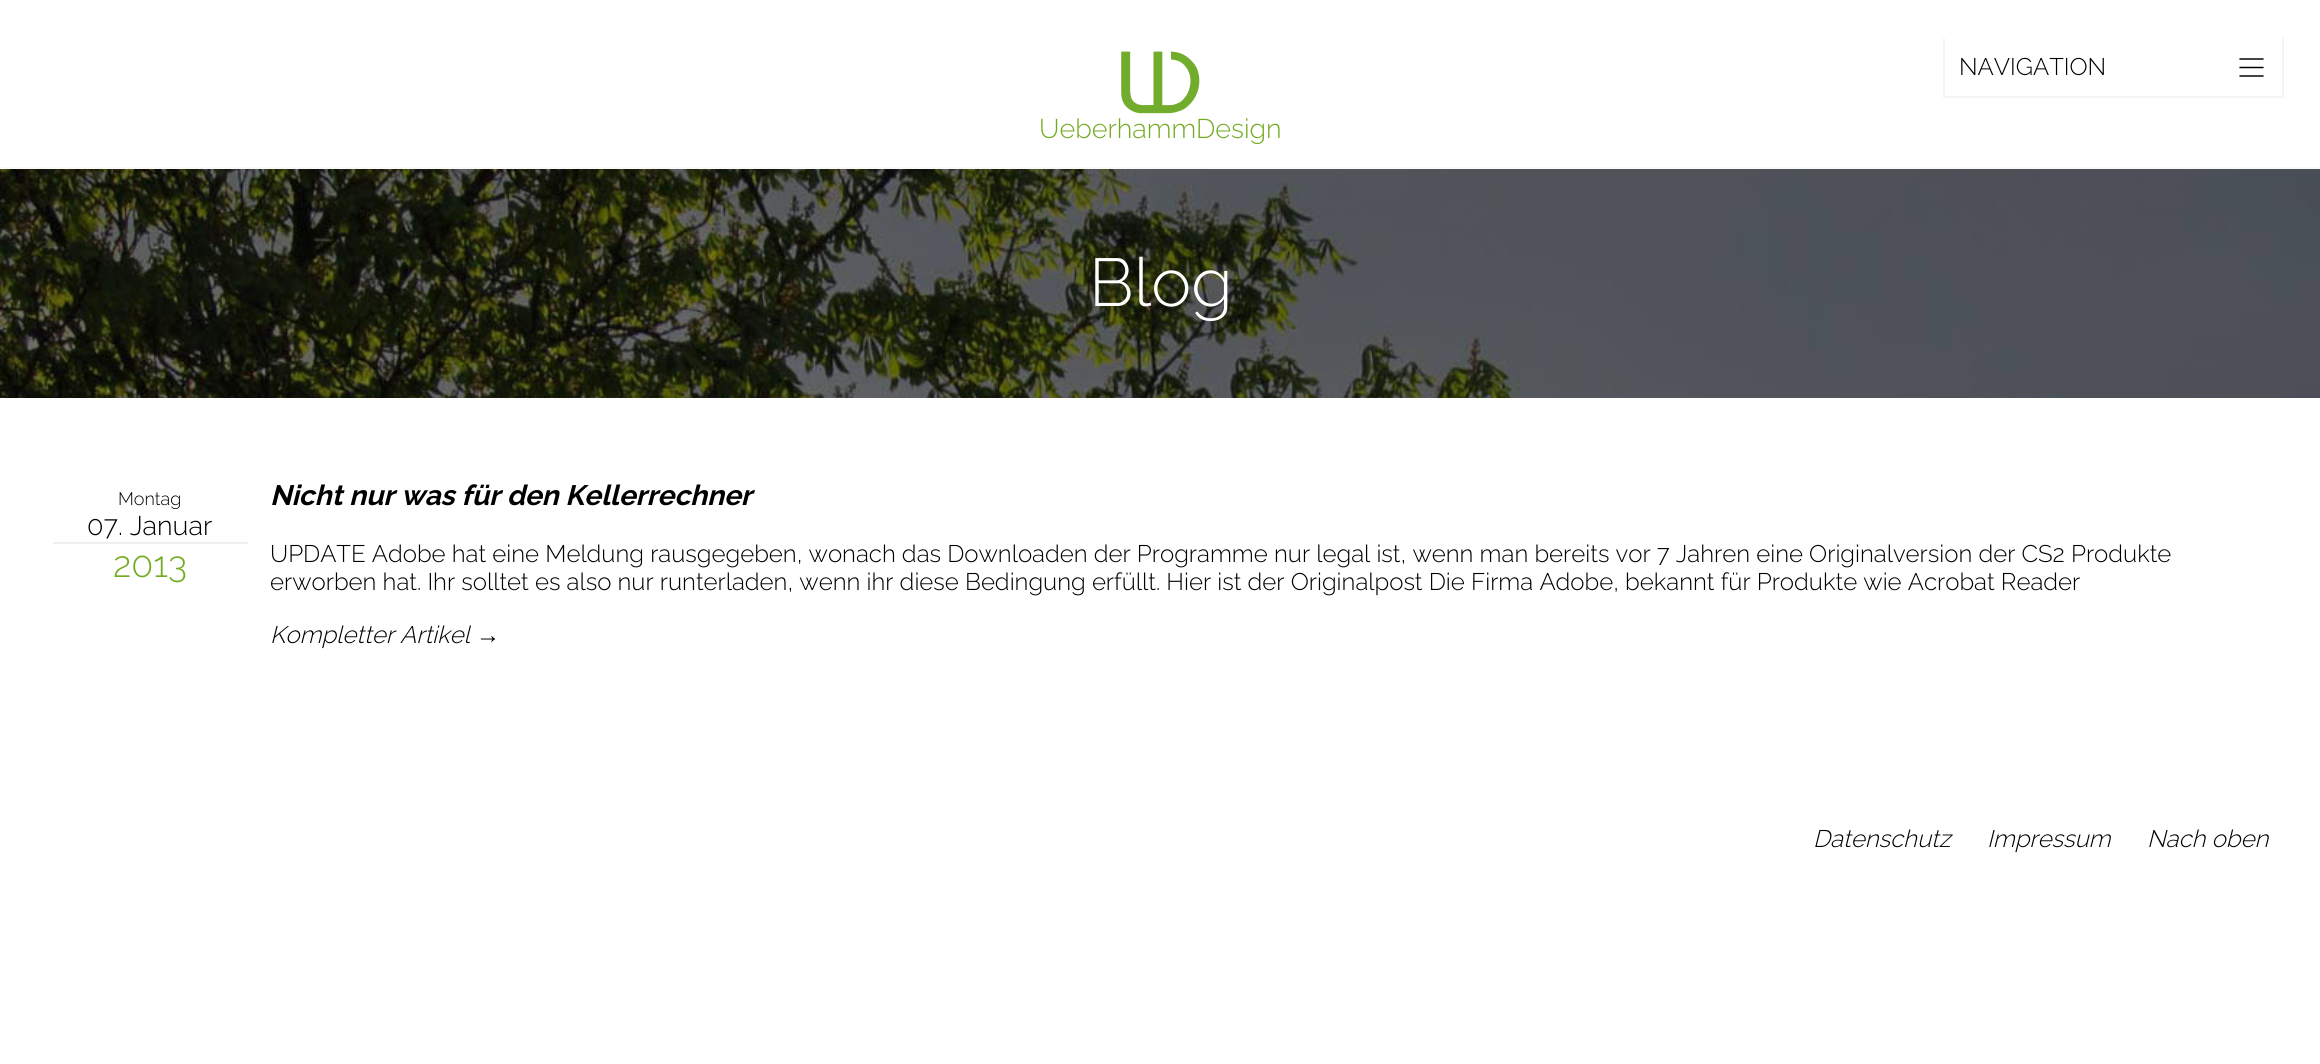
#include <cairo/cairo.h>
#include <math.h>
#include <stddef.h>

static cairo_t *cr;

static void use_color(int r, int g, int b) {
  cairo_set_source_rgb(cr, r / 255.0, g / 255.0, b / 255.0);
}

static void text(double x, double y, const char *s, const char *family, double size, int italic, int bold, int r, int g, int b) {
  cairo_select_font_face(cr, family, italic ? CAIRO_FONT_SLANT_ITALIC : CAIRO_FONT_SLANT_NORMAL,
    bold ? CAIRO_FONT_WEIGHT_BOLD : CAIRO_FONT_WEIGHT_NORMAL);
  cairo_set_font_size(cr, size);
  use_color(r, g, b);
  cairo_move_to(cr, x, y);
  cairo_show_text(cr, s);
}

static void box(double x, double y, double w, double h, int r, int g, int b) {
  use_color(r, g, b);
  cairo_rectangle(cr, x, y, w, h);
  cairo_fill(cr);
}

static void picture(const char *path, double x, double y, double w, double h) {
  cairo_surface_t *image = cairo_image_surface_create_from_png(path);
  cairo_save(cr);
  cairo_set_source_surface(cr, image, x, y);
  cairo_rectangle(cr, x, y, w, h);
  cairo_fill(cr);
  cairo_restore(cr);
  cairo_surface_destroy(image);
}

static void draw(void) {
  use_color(255, 255, 255);
  cairo_paint(cr);
  picture("img_01.png", 0, 169, 2320, 229);
  box(2282, 38, 2, 60, 245, 245, 245);
  box(1943, 96, 340, 2, 245, 245, 245);
  box(1943, 38, 2, 60, 245, 245, 245);
  picture("img_02.png", 2239, 58, 25, 19);
  box(0, 167, 2320, 2, 249, 249, 249);
  picture("img_03.png", 1121, 51, 79, 63);
  box(53, 542, 195, 2, 239, 239, 239);
  text(1959, 75, "NAVIGATION", "Raleway Light", 24, 0, 0, 0, 0, 0);
  text(1039, 138, "UeberhammDesign", "Raleway Light", 27, 0, 0, 114, 171, 33);
  text(1089, 306, "Blog", "Raleway Light", 67.5, 0, 0, 255, 255, 255);
  text(118, 505, "Montag", "Raleway Light", 18, 0, 0, 0, 0, 0);
  text(87, 535, "07. Januar", "Raleway Light", 27, 0, 0, 0, 0, 0);
  text(113, 577, "2013", "Raleway Light", 36, 0, 0, 114, 171, 33);
  text(270, 505, "Nicht nur was für den Kellerrechner", "Raleway", 28.1, 1, 1, 0, 0, 0);
  text(270, 562, "UPDATE Adobe hat eine Meldung rausgegeben, wonach das Downloaden der Programme nur legal ist, wenn man bereits vor 7 Jahren eine Originalversion der CS2 Produkte", "Raleway Light", 24, 0, 0, 0, 0, 0);
  text(270, 590, "erworben hat. Ihr solltet es also nur runterladen, wenn ihr diese Bedingung erfüllt. Hier ist der Originalpost Die Firma Adobe, bekannt für Produkte wie Acrobat Reader", "Raleway Light", 24, 0, 0, 0, 0, 0);
  text(270, 643, "Kompletter Artikel", "Raleway Light", 24, 1, 0, 0, 0, 0);
  text(476, 643, "→", "Liberation Sans", 24, 1, 0, 0, 0, 0);
  text(1813, 847, "Datenschutz", "Raleway Light", 24, 1, 0, 0, 0, 0);
  text(1987, 847, "Impressum", "Raleway Light", 24, 1, 0, 0, 0, 0);
  text(2147, 847, "Nach oben", "Raleway Light", 24, 1, 0, 0, 0, 0);
}

int main(void) {
  cairo_surface_t *surface = cairo_image_surface_create(CAIRO_FORMAT_RGB24, 2320, 1064);
  cr = cairo_create(surface);
  cairo_font_options_t *options = cairo_font_options_create();
  cairo_font_options_set_hint_metrics(options, CAIRO_HINT_METRICS_OFF);
  cairo_font_options_set_hint_style(options, CAIRO_HINT_STYLE_NONE);
  cairo_set_font_options(cr, options);
  cairo_set_miter_limit(cr, 4);
  draw();
  cairo_surface_write_to_png(surface, "out.png");
  cairo_font_options_destroy(options);
  cairo_destroy(cr);
  cairo_surface_destroy(surface);
  return 0;
}
